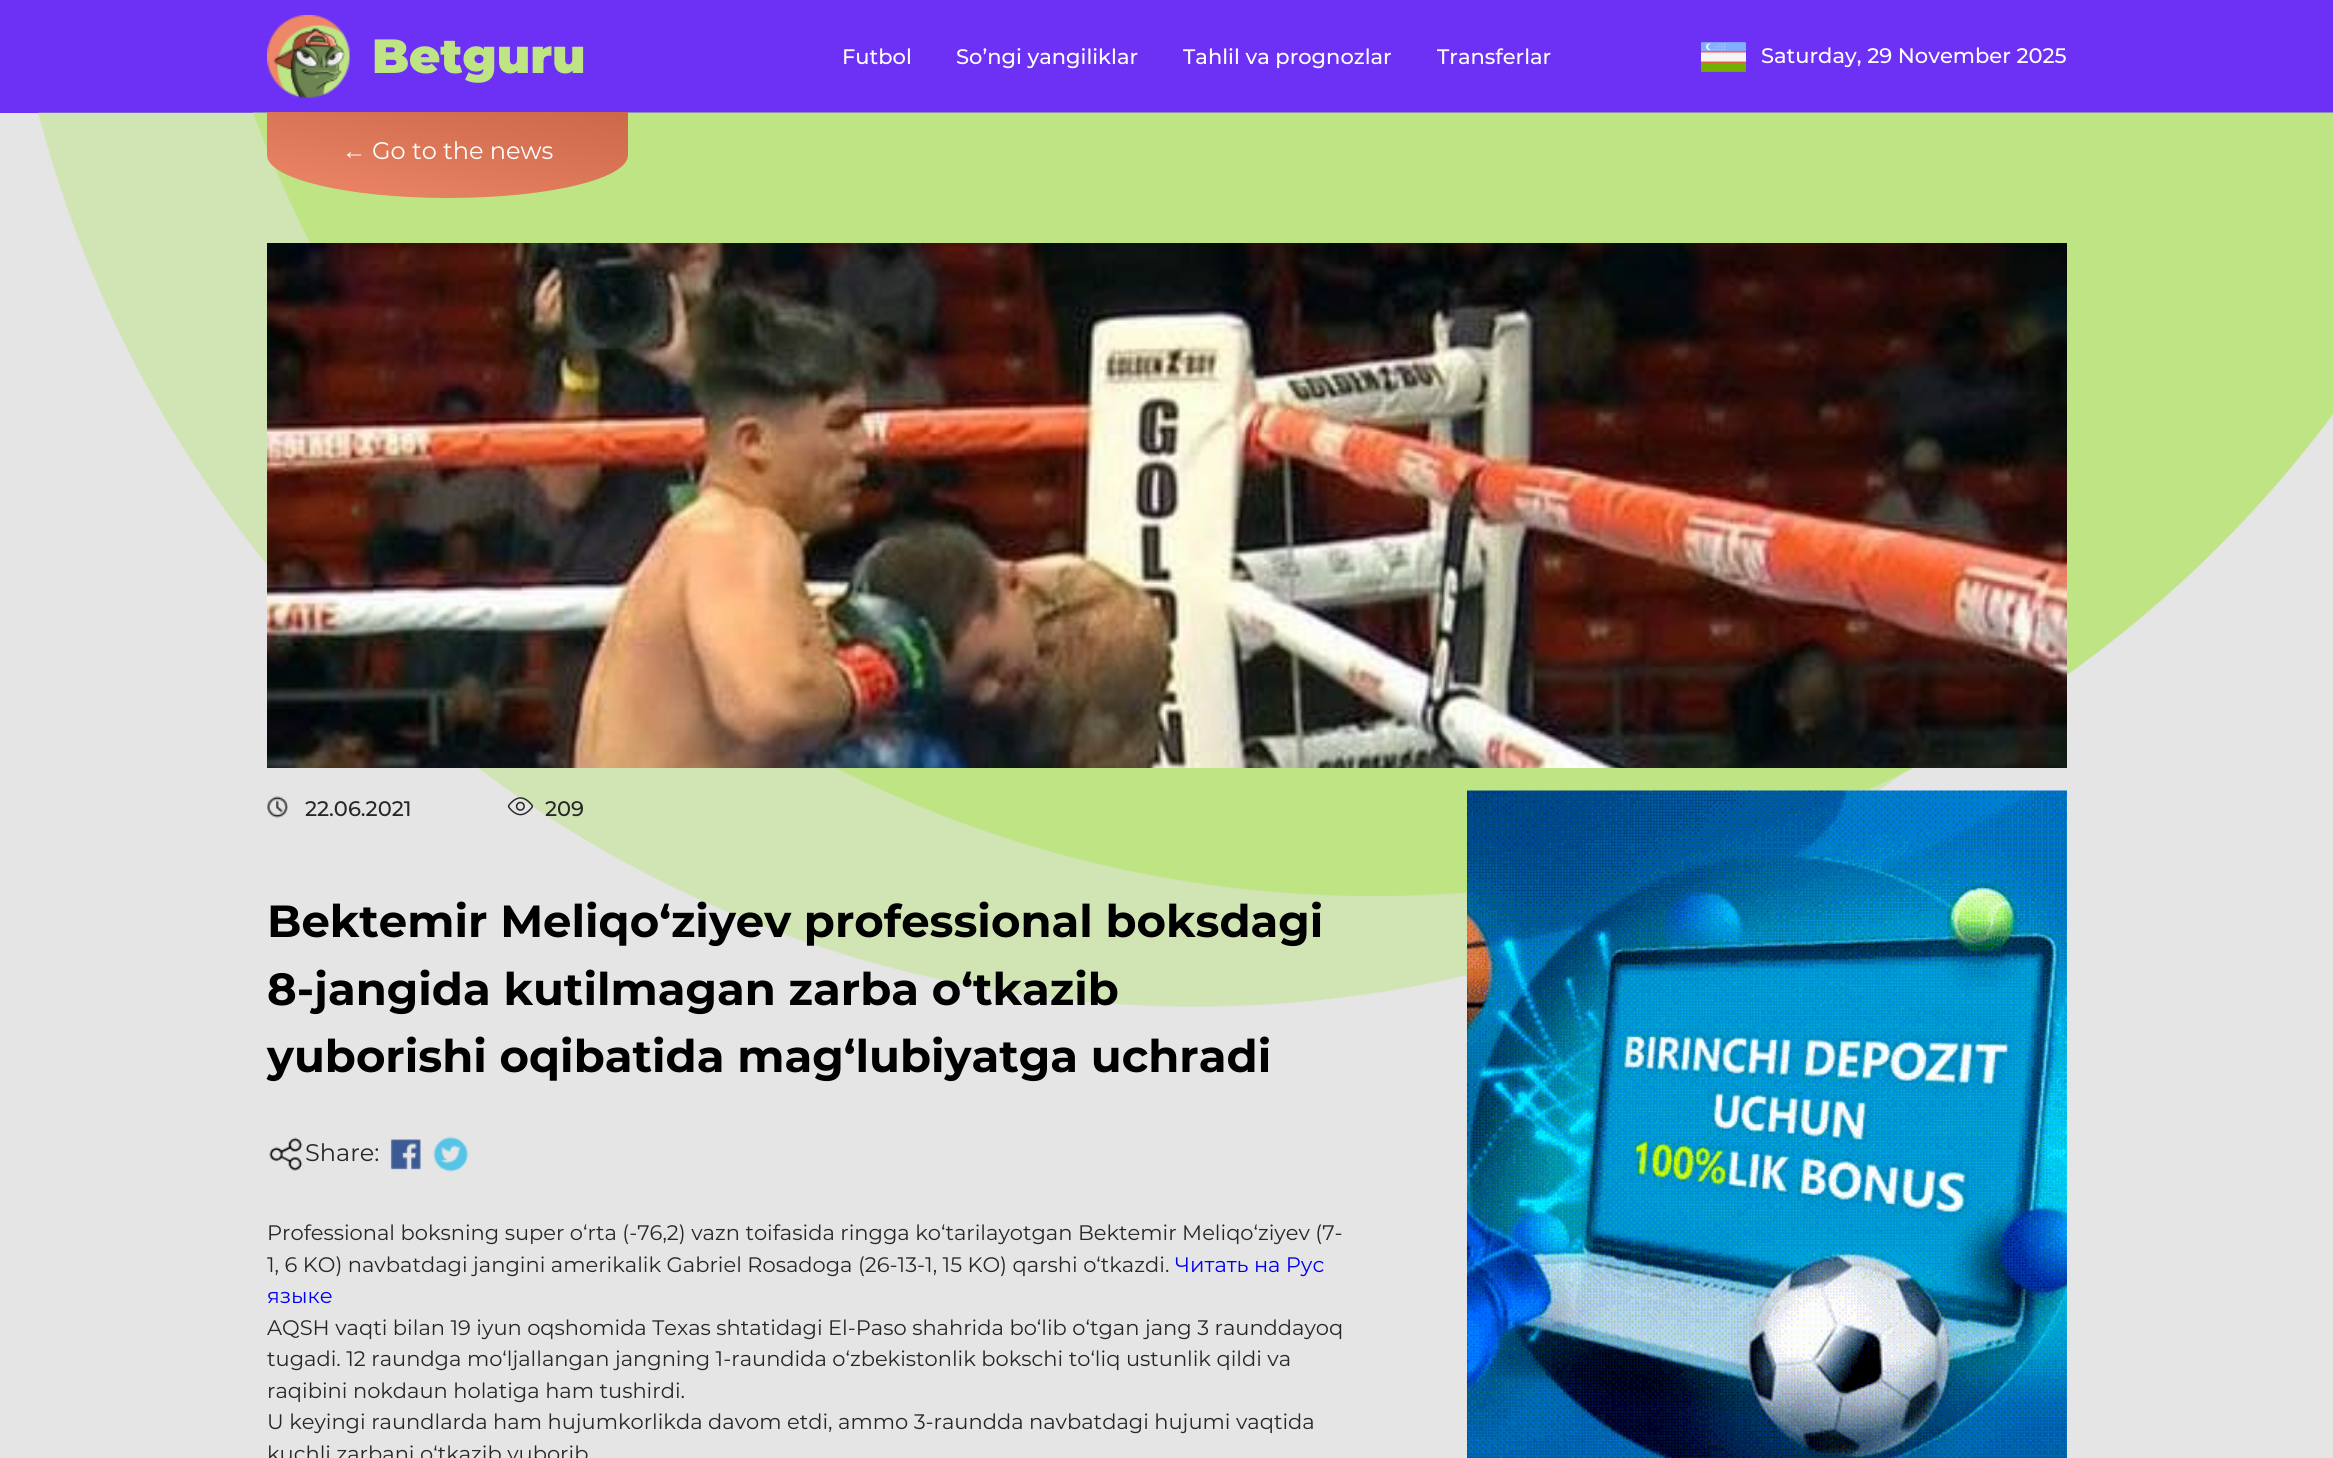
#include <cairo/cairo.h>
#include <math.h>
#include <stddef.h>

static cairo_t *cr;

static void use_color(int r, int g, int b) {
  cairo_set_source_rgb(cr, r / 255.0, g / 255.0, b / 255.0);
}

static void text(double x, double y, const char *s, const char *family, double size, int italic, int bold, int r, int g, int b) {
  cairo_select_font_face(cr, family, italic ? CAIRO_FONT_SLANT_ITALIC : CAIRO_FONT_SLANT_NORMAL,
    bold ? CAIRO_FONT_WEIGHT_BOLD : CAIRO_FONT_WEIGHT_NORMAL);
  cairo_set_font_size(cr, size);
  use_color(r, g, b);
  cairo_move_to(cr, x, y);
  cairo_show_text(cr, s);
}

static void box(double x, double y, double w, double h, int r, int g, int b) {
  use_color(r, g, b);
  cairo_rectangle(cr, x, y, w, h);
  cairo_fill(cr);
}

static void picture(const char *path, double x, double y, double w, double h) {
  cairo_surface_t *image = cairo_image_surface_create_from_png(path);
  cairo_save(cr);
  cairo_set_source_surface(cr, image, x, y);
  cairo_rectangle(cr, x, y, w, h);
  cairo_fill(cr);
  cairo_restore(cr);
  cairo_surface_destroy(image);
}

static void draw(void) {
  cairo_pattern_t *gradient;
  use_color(229, 229, 229);
  cairo_paint(cr);
  box(0, 0, 2333, 113, 109, 49, 245);
  picture("img_01.png", 267, 15, 83, 83);
  picture("img_02.png", 1701, 42, 45, 30);
  picture("img_03.png", 38, 112, 2295, 895);
  gradient = cairo_pattern_create_linear(485, -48, 434, 229);
  cairo_pattern_add_color_stop_rgba(gradient, 0, 0.678, 0.306, 0.188, 1);
  cairo_pattern_add_color_stop_rgba(gradient, 1, 0.929, 0.529, 0.404, 1);
  cairo_set_source(cr, gradient);
  cairo_pattern_destroy(gradient);
  cairo_new_path(cr);
  cairo_move_to(cr, 267, 112);
  cairo_line_to(cr, 628, 112);
  cairo_line_to(cr, 628, 155);
  cairo_curve_to(cr, 628, 179, 548, 198, 448, 198);
  cairo_curve_to(cr, 348, 198, 267, 179, 267, 155);
  cairo_close_path(cr);
  cairo_fill(cr);
  picture("img_04.png", 267, 243, 1800, 525);
  picture("img_05.png", 267, 796, 21, 22);
  picture("img_06.png", 507, 797, 26, 19);
  picture("img_07.png", 269, 1137, 34, 34);
  picture("img_08.png", 390, 1139, 31, 31);
  picture("img_09.png", 433, 1136, 36, 36);
  picture("img_10.png", 1467, 790, 600, 668);
  text(372, 73, "Betguru", "Montserrat Black", 48, 0, 0, 190, 228, 132);
  text(842, 64, "Futbol", "Montserrat Medium", 21, 0, 0, 255, 255, 255);
  text(956, 64, "So’ngi yangiliklar", "Montserrat Medium", 21, 0, 0, 255, 255, 255);
  text(1183, 64, "Tahlil va prognozlar", "Montserrat Medium", 21, 0, 0, 255, 255, 255);
  text(1437, 64, "Transferlar", "Montserrat Medium", 21, 0, 0, 255, 255, 255);
  text(1761, 63, "Saturday, 29 November 2025", "Montserrat Medium", 21, 0, 0, 255, 255, 255);
  text(342, 159, "←", "Liberation Sans", 24, 0, 0, 255, 255, 255);
  text(372, 159, "Go to the news", "Montserrat", 24, 0, 0, 255, 255, 255);
  text(305, 816, "22.06.2021", "Montserrat Medium", 21, 0, 0, 39, 39, 39);
  text(545, 816, "209", "Montserrat Medium", 21, 0, 0, 39, 39, 39);
  text(267, 937, "Bektemir Meliqo‘ziyev professional boksdagi", "Montserrat", 45, 0, 1, 0, 0, 0);
  text(267, 1005, "8-jangida kutilmagan zarba o‘tkazib", "Montserrat", 45, 0, 1, 0, 0, 0);
  text(267, 1072, "yuborishi oqibatida mag‘lubiyatga uchradi", "Montserrat", 45, 0, 1, 0, 0, 0);
  text(305, 1161, "Share:", "Montserrat", 24, 0, 0, 39, 39, 39);
  text(267, 1240, "Professional boksning super o‘rta (-76,2) vazn toifasida ringga ko‘tarilayotgan Bektemir Meliqo‘ziyev (7-", "Montserrat", 21, 0, 0, 39, 39, 39);
  text(267, 1272, "1, 6 KO) navbatdagi jangini amerikalik Gabriel Rosadoga (26-13-1, 15 KO) qarshi o‘tkazdi.", "Montserrat", 21, 0, 0, 39, 39, 39);
  text(1175, 1272, "Читать на Рус", "Montserrat", 21, 0, 0, 0, 0, 238);
  text(267, 1303, "языке", "Montserrat", 21, 0, 0, 0, 0, 238);
  text(267, 1335, "AQSH vaqti bilan 19 iyun oqshomida Texas shtatidagi El-Paso shahrida bo‘lib o‘tgan jang 3 raunddayoq", "Montserrat", 21, 0, 0, 39, 39, 39);
  text(267, 1366, "tugadi. 12 raundga mo‘ljallangan jangning 1-raundida o‘zbekistonlik bokschi to‘liq ustunlik qildi va", "Montserrat", 21, 0, 0, 39, 39, 39);
  text(267, 1398, "raqibini nokdaun holatiga ham tushirdi.", "Montserrat", 21, 0, 0, 39, 39, 39);
  text(267, 1429, "U keyingi raundlarda ham hujumkorlikda davom etdi, ammo 3-raundda navbatdagi hujumi vaqtida", "Montserrat", 21, 0, 0, 39, 39, 39);
  text(267, 1461, "kuchli zarbani o‘tkazib yuborib", "Montserrat", 21, 0, 0, 39, 39, 39);
}

int main(void) {
  cairo_surface_t *surface = cairo_image_surface_create(CAIRO_FORMAT_RGB24, 2333, 1458);
  cr = cairo_create(surface);
  cairo_font_options_t *options = cairo_font_options_create();
  cairo_font_options_set_hint_metrics(options, CAIRO_HINT_METRICS_OFF);
  cairo_font_options_set_hint_style(options, CAIRO_HINT_STYLE_NONE);
  cairo_set_font_options(cr, options);
  cairo_set_miter_limit(cr, 4);
  draw();
  cairo_surface_write_to_png(surface, "out.png");
  cairo_font_options_destroy(options);
  cairo_destroy(cr);
  cairo_surface_destroy(surface);
  return 0;
}
